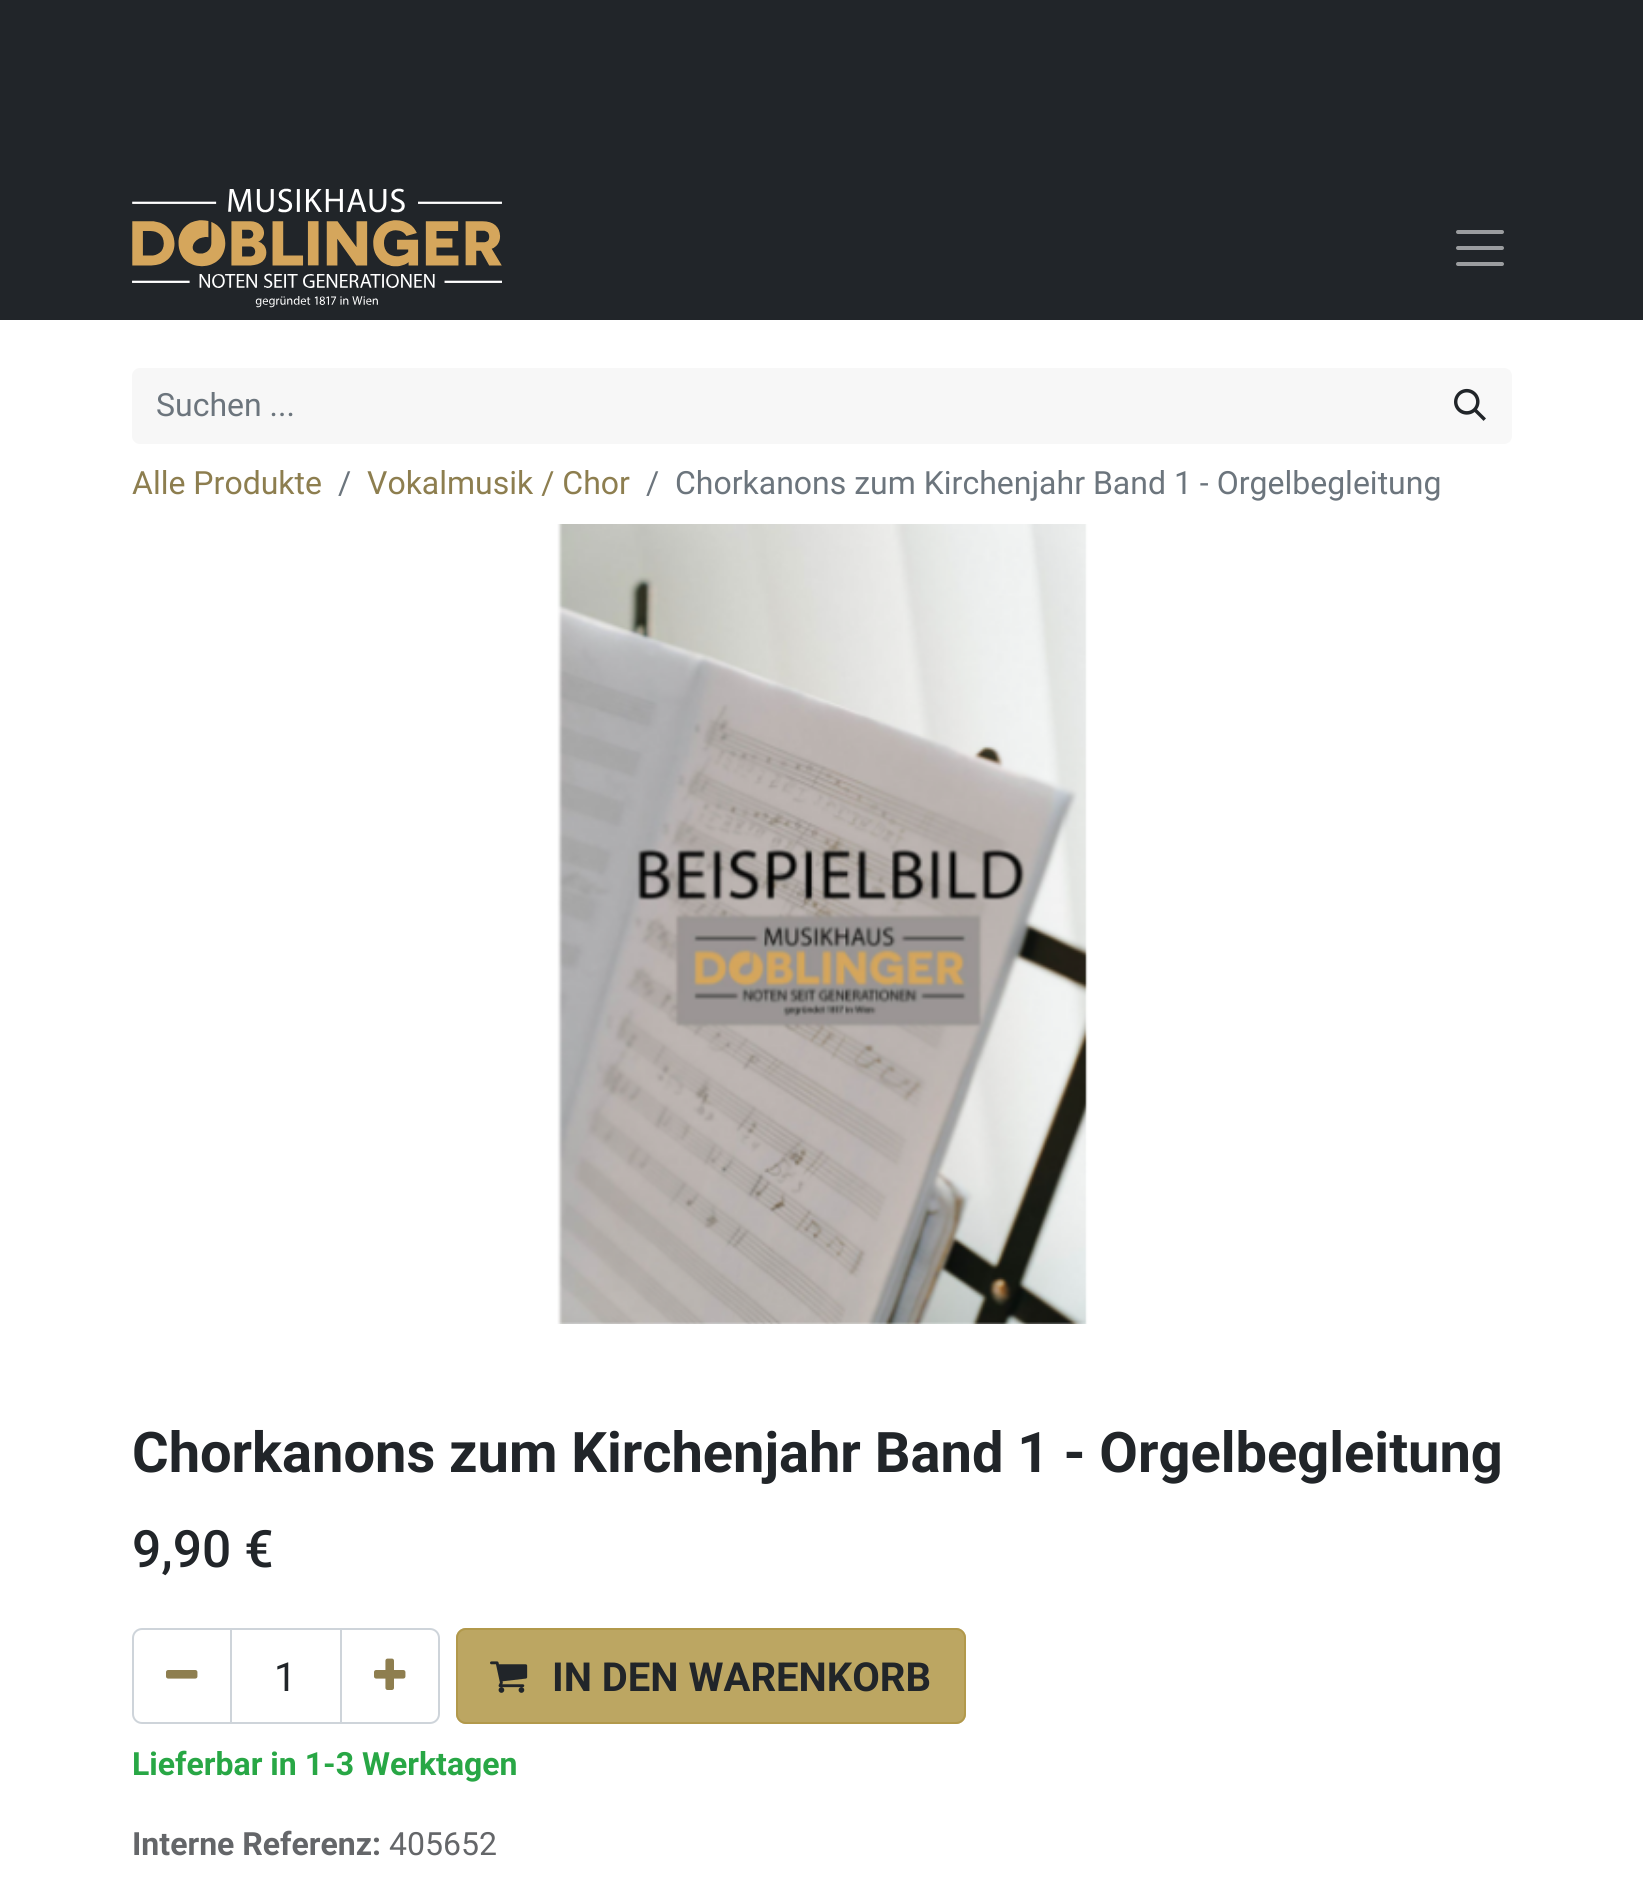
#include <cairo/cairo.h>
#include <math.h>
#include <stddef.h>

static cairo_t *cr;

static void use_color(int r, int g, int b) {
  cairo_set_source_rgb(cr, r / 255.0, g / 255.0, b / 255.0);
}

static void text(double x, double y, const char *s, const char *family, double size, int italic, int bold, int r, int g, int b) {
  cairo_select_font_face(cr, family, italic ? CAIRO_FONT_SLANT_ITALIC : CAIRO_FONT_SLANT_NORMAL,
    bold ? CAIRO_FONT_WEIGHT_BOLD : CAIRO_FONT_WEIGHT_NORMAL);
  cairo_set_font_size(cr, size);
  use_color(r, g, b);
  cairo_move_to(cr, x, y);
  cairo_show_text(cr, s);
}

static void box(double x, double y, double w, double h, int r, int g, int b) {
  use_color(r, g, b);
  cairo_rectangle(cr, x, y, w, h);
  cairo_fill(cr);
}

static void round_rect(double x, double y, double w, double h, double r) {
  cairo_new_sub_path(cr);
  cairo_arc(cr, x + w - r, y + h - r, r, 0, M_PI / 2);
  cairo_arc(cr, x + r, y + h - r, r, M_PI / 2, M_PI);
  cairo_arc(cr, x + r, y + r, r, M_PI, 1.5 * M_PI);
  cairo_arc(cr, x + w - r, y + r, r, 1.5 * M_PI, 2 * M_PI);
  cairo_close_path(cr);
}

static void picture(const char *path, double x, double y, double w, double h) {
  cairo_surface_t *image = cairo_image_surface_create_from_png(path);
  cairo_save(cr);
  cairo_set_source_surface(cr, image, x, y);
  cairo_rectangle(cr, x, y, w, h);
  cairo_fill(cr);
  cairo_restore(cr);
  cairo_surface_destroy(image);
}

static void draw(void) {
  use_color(255, 255, 255);
  cairo_paint(cr);
  box(0, 0, 1643, 320, 33, 37, 41);
  picture("img_01.png", 132, 188, 370, 120);
  cairo_new_path(cr);
  cairo_move_to(cr, 1458, 232);
  cairo_line_to(cr, 1502, 232);
  cairo_move_to(cr, 1458, 248);
  cairo_line_to(cr, 1502, 248);
  cairo_move_to(cr, 1458, 264);
  cairo_line_to(cr, 1502, 264);
  use_color(155, 157, 159);
  cairo_set_line_width(cr, 4);
  cairo_set_line_cap(cr, CAIRO_LINE_CAP_ROUND);
  cairo_stroke(cr);
  use_color(247, 247, 247);
  cairo_new_path(cr);
  cairo_move_to(cr, 140, 368);
  cairo_line_to(cr, 1430, 368);
  cairo_line_to(cr, 1430, 444);
  cairo_line_to(cr, 140, 444);
  cairo_curve_to(cr, 135.5, 444, 132, 440.5, 132, 436);
  cairo_line_to(cr, 132, 376);
  cairo_curve_to(cr, 132, 371.5, 135.5, 368, 140, 368);
  cairo_close_path(cr);
  cairo_fill(cr);
  cairo_set_source_rgba(cr, 0.969, 0.969, 0.969, 0.86);
  cairo_new_path(cr);
  cairo_move_to(cr, 1428, 368);
  cairo_line_to(cr, 1504, 368);
  cairo_curve_to(cr, 1508.5, 368, 1512, 371.5, 1512, 376);
  cairo_line_to(cr, 1512, 436);
  cairo_curve_to(cr, 1512, 440.5, 1508.5, 444, 1504, 444);
  cairo_line_to(cr, 1428, 444);
  cairo_close_path(cr);
  cairo_fill(cr);
  picture("img_02.png", 1454, 388, 32, 33);
  picture("img_03.png", 557, 524, 531, 800);
  cairo_rectangle(cr, 231, 1629, 110, 94);
  use_color(206, 212, 218);
  cairo_set_line_width(cr, 2);
  cairo_set_line_cap(cr, CAIRO_LINE_CAP_BUTT);
  cairo_stroke(cr);
  cairo_new_path(cr);
  cairo_move_to(cr, 142, 1629);
  cairo_line_to(cr, 231, 1629);
  cairo_line_to(cr, 231, 1723);
  cairo_line_to(cr, 142, 1723);
  cairo_curve_to(cr, 137, 1723, 133, 1719, 133, 1714);
  cairo_line_to(cr, 133, 1638);
  cairo_curve_to(cr, 133, 1633, 137, 1629, 142, 1629);
  cairo_close_path(cr);
  cairo_stroke(cr);
  picture("img_04.png", 166, 1670, 32, 9);
  cairo_new_path(cr);
  cairo_move_to(cr, 341, 1629);
  cairo_line_to(cr, 430, 1629);
  cairo_curve_to(cr, 435, 1629, 439, 1633, 439, 1638);
  cairo_line_to(cr, 439, 1714);
  cairo_curve_to(cr, 439, 1719, 435, 1723, 430, 1723);
  cairo_line_to(cr, 341, 1723);
  cairo_close_path(cr);
  cairo_stroke(cr);
  picture("img_05.png", 374, 1658, 32, 32);
  use_color(188, 166, 98);
  round_rect(456, 1628, 510, 96, 10);
  cairo_fill(cr);
  round_rect(457, 1629, 508, 94, 9);
  cairo_set_source_rgba(cr, 0.694, 0.592, 0.282, 0.86);
  cairo_stroke(cr);
  picture("img_06.png", 490, 1661, 38, 32);
  text(156, 416, "Suchen ...", "Roboto", 32, 0, 0, 108, 117, 125);
  text(132, 494, "Alle Produkte", "Roboto", 32, 0, 0, 141, 126, 79);
  text(338, 494, "/", "Roboto", 32, 0, 0, 108, 117, 125);
  text(367, 494, "Vokalmusik / Chor", "Roboto", 32, 0, 0, 141, 126, 79);
  text(646, 494, "/", "Roboto", 32, 0, 0, 108, 117, 125);
  text(675, 494, "Chorkanons zum Kirchenjahr Band 1 - Orgelbegleitung", "Roboto", 32, 0, 0, 108, 117, 125);
  text(132, 1472, "Chorkanons zum Kirchenjahr Band 1 - Orgelbegleitung", "Roboto", 56, 0, 1, 33, 37, 41);
  text(132, 1567, "9,90 €", "Roboto Medium", 51.5, 0, 0, 33, 37, 41);
  text(274, 1691, "1", "Roboto", 40, 0, 0, 33, 37, 41);
  text(552, 1691, "IN DEN WARENKORB", "Roboto", 40, 0, 1, 33, 37, 41);
  text(132, 1775, "Lieferbar in 1-3 Werktagen", "Roboto", 32, 0, 1, 40, 167, 69);
  text(132, 1855, "Interne Referenz:", "Roboto", 32, 0, 1, 100, 102, 105);
  text(389, 1855, "405652", "Roboto", 32, 0, 0, 100, 102, 105);
}

int main(void) {
  cairo_surface_t *surface = cairo_image_surface_create(CAIRO_FORMAT_RGB24, 1643, 1893);
  cr = cairo_create(surface);
  cairo_font_options_t *options = cairo_font_options_create();
  cairo_font_options_set_hint_metrics(options, CAIRO_HINT_METRICS_OFF);
  cairo_font_options_set_hint_style(options, CAIRO_HINT_STYLE_NONE);
  cairo_set_font_options(cr, options);
  cairo_set_miter_limit(cr, 4);
  draw();
  cairo_surface_write_to_png(surface, "out.png");
  cairo_font_options_destroy(options);
  cairo_destroy(cr);
  cairo_surface_destroy(surface);
  return 0;
}
